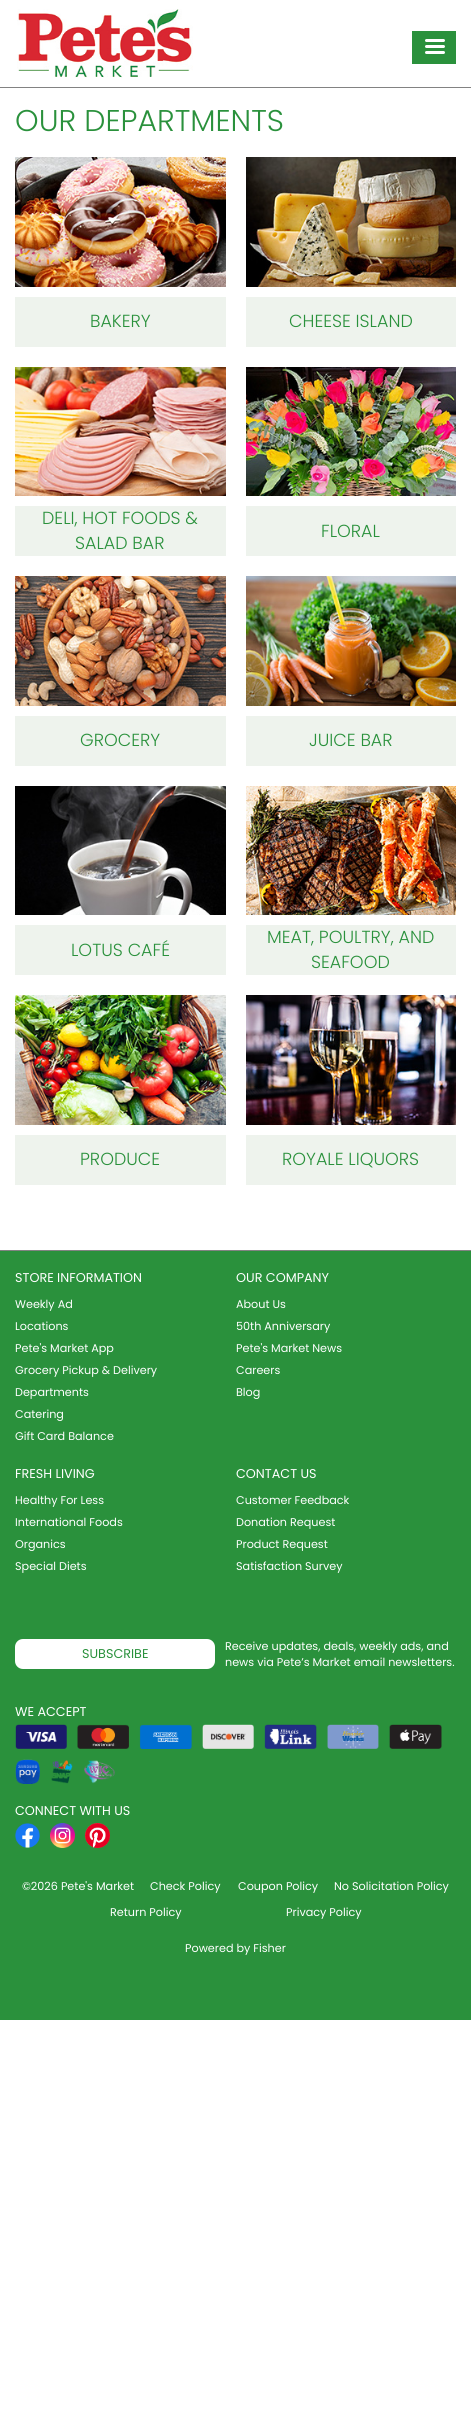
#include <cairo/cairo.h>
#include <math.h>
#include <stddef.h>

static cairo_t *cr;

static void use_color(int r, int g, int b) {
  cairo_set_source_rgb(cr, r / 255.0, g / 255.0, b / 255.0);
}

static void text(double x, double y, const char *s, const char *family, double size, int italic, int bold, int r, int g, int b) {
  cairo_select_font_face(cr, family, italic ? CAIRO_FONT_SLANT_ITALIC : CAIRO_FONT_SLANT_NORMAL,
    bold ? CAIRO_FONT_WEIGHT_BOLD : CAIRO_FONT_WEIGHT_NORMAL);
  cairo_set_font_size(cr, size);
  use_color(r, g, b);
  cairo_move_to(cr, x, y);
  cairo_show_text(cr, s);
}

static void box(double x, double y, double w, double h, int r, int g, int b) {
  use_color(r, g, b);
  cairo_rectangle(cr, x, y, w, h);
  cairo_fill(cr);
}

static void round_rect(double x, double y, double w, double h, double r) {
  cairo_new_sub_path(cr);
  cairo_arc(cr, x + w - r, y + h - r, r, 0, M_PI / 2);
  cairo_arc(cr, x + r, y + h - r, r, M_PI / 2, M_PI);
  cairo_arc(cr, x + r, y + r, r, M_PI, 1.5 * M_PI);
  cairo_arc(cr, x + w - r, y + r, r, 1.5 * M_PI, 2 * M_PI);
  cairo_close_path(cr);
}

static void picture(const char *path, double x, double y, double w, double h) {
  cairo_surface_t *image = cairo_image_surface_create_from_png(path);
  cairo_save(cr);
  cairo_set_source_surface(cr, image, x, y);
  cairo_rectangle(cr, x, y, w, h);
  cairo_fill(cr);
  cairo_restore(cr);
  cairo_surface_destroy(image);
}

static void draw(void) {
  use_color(255, 255, 255);
  cairo_paint(cr);
  box(0, 87, 471, 1, 130, 130, 130);
  picture("img_01.png", 17, 9, 176, 69);
  box(412, 31, 44, 33, 42, 145, 60);
  use_color(255, 255, 255);
  round_rect(425, 39, 20, 3, 1.5);
  cairo_fill(cr);
  round_rect(425, 45, 20, 3, 1.5);
  cairo_fill(cr);
  round_rect(425, 51, 20, 3, 1.5);
  cairo_fill(cr);
  picture("img_02.png", 15, 157, 211, 130);
  box(15, 297, 211, 50, 238, 243, 237);
  picture("img_03.png", 246, 157, 210, 130);
  box(246, 297, 210, 50, 238, 243, 237);
  picture("img_04.png", 15, 367, 211, 129);
  box(15, 506, 211, 50, 238, 243, 237);
  picture("img_05.png", 246, 367, 210, 129);
  box(246, 506, 210, 50, 238, 243, 237);
  picture("img_06.png", 15, 576, 211, 130);
  box(15, 716, 211, 50, 238, 243, 237);
  picture("img_07.png", 246, 576, 210, 130);
  box(246, 716, 210, 50, 238, 243, 237);
  picture("img_08.png", 15, 786, 211, 129);
  box(15, 925, 211, 50, 238, 243, 237);
  picture("img_09.png", 246, 786, 210, 129);
  box(246, 925, 210, 50, 238, 243, 237);
  picture("img_10.png", 15, 995, 211, 130);
  box(15, 1135, 211, 50, 238, 243, 237);
  picture("img_11.png", 246, 995, 210, 130);
  box(246, 1135, 210, 50, 238, 243, 237);
  box(0, 1251, 471, 769, 42, 145, 60);
  box(0, 1250, 471, 1, 130, 130, 130);
  use_color(255, 255, 255);
  round_rect(15, 1639, 200, 30, 8);
  cairo_fill(cr);
  picture("img_12.png", 15, 1724, 52, 25);
  picture("img_13.png", 77, 1724, 52, 25);
  picture("img_14.png", 139, 1724, 53, 25);
  picture("img_15.png", 202, 1724, 52, 25);
  picture("img_16.png", 264, 1724, 53, 25);
  picture("img_17.png", 327, 1724, 52, 25);
  picture("img_18.png", 389, 1724, 53, 25);
  picture("img_19.png", 15, 1759, 25, 25);
  picture("img_20.png", 51, 1760, 22, 24);
  picture("img_21.png", 84, 1760, 31, 24);
  picture("img_22.png", 15, 1823, 25, 25);
  picture("img_23.png", 50, 1823, 25, 25);
  picture("img_24.png", 85, 1823, 25, 25);
  text(15, 131, "OUR DEPARTMENTS", "Poppins Light", 30, 0, 0, 42, 145, 60);
  text(90, 327, "BAKERY", "Poppins Light", 17.5, 0, 0, 42, 145, 60);
  text(289, 327, "CHEESE ISLAND", "Poppins Light", 17.5, 0, 0, 42, 145, 60);
  text(42, 524, "DELI, HOT FOODS &", "Poppins Light", 17.5, 0, 0, 42, 145, 60);
  text(75, 549, "SALAD BAR", "Poppins Light", 17.5, 0, 0, 42, 145, 60);
  text(321, 537, "FLORAL", "Poppins Light", 17.5, 0, 0, 42, 145, 60);
  text(80, 746, "GROCERY", "Poppins Light", 17.5, 0, 0, 42, 145, 60);
  text(309, 746, "JUICE BAR", "Poppins Light", 17.5, 0, 0, 42, 145, 60);
  text(71, 956, "LOTUS CAFÉ", "Poppins Light", 17.5, 0, 0, 42, 145, 60);
  text(267, 943, "MEAT, POULTRY, AND", "Poppins Light", 17.5, 0, 0, 42, 145, 60);
  text(311, 968, "SEAFOOD", "Poppins Light", 17.5, 0, 0, 42, 145, 60);
  text(80, 1165, "PRODUCE", "Poppins Light", 17.5, 0, 0, 42, 145, 60);
  text(282, 1165, "ROYALE LIQUORS", "Poppins Light", 17.5, 0, 0, 42, 145, 60);
  text(15, 1282, "STORE INFORMATION", "Poppins", 12.75, 0, 0, 255, 255, 255);
  text(15, 1308, "Weekly Ad", "Poppins", 11.2, 0, 0, 255, 255, 255);
  text(15, 1330, "Locations", "Poppins", 11.2, 0, 0, 255, 255, 255);
  text(15, 1352, "Pete's Market App", "Poppins", 11.2, 0, 0, 255, 255, 255);
  text(15, 1374, "Grocery Pickup & Delivery", "Poppins", 11.2, 0, 0, 255, 255, 255);
  text(15, 1396, "Departments", "Poppins", 11.2, 0, 0, 255, 255, 255);
  text(15, 1418, "Catering", "Poppins", 11.2, 0, 0, 255, 255, 255);
  text(15, 1440, "Gift Card Balance", "Poppins", 11.2, 0, 0, 255, 255, 255);
  text(236, 1282, "OUR COMPANY", "Poppins", 12.75, 0, 0, 255, 255, 255);
  text(236, 1308, "About Us", "Poppins", 11.2, 0, 0, 255, 255, 255);
  text(236, 1330, "50th Anniversary", "Poppins", 11.2, 0, 0, 255, 255, 255);
  text(236, 1352, "Pete's Market News", "Poppins", 11.2, 0, 0, 255, 255, 255);
  text(236, 1374, "Careers", "Poppins", 11.2, 0, 0, 255, 255, 255);
  text(236, 1396, "Blog", "Poppins", 11.2, 0, 0, 255, 255, 255);
  text(15, 1478, "FRESH LIVING", "Poppins", 12.75, 0, 0, 255, 255, 255);
  text(15, 1504, "Healthy For Less", "Poppins", 11.2, 0, 0, 255, 255, 255);
  text(15, 1526, "International Foods", "Poppins", 11.2, 0, 0, 255, 255, 255);
  text(15, 1548, "Organics", "Poppins", 11.2, 0, 0, 255, 255, 255);
  text(15, 1570, "Special Diets", "Poppins", 11.2, 0, 0, 255, 255, 255);
  text(236, 1478, "CONTACT US", "Poppins", 12.75, 0, 0, 255, 255, 255);
  text(236, 1504, "Customer Feedback", "Poppins", 11.2, 0, 0, 255, 255, 255);
  text(236, 1526, "Donation Request", "Poppins", 11.2, 0, 0, 255, 255, 255);
  text(236, 1548, "Product Request", "Poppins", 11.2, 0, 0, 255, 255, 255);
  text(236, 1570, "Satisfaction Survey", "Poppins", 11.2, 0, 0, 255, 255, 255);
  text(82, 1658, "SUBSCRIBE", "Poppins", 12.75, 0, 0, 42, 145, 60);
  text(225, 1650, "Receive updates, deals, weekly ads, and", "Poppins", 11.2, 0, 0, 255, 255, 255);
  text(225, 1666, "news via Pete’s Market email newsletters.", "Poppins", 11.2, 0, 0, 255, 255, 255);
  text(15, 1716, "WE ACCEPT", "Poppins", 12.75, 0, 0, 255, 255, 255);
  text(15, 1815, "CONNECT WITH US", "Poppins", 12.75, 0, 0, 255, 255, 255);
  text(22, 1890, "©2026 Pete's Market", "Poppins", 11.2, 0, 0, 255, 255, 255);
  text(150, 1890, "Check Policy", "Poppins", 11.2, 0, 0, 255, 255, 255);
  text(238, 1890, "Coupon Policy", "Poppins", 11.2, 0, 0, 255, 255, 255);
  text(334, 1890, "No Solicitation Policy", "Poppins", 11.2, 0, 0, 255, 255, 255);
  text(110, 1916, "Return Policy", "Poppins", 11.2, 0, 0, 255, 255, 255);
  text(286, 1916, "Privacy Policy", "Poppins", 11.2, 0, 0, 255, 255, 255);
  text(185, 1952, "Powered by Fisher", "Poppins", 11.2, 0, 0, 255, 255, 255);
}

int main(void) {
  cairo_surface_t *surface = cairo_image_surface_create(CAIRO_FORMAT_RGB24, 471, 2418);
  cr = cairo_create(surface);
  cairo_font_options_t *options = cairo_font_options_create();
  cairo_font_options_set_hint_metrics(options, CAIRO_HINT_METRICS_OFF);
  cairo_font_options_set_hint_style(options, CAIRO_HINT_STYLE_NONE);
  cairo_set_font_options(cr, options);
  cairo_set_miter_limit(cr, 4);
  draw();
  cairo_surface_write_to_png(surface, "out.png");
  cairo_font_options_destroy(options);
  cairo_destroy(cr);
  cairo_surface_destroy(surface);
  return 0;
}
